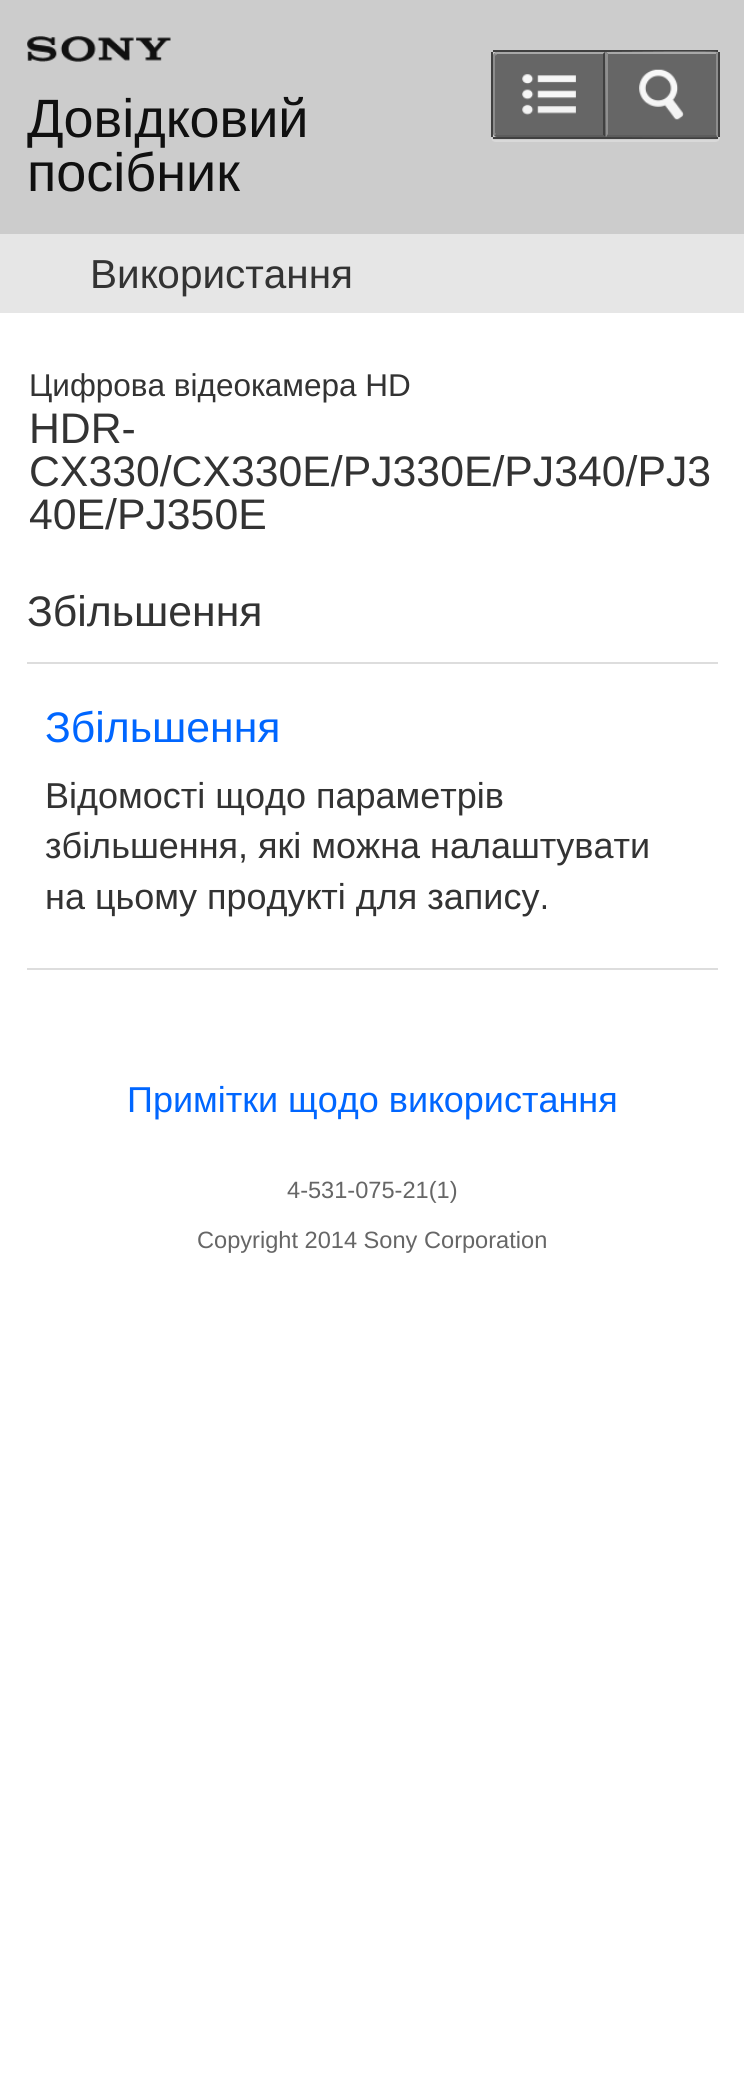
#include <cairo/cairo.h>
#include <math.h>
#include <stddef.h>

static cairo_t *cr;

static void use_color(int r, int g, int b) {
  cairo_set_source_rgb(cr, r / 255.0, g / 255.0, b / 255.0);
}

static void text(double x, double y, const char *s, const char *family, double size, int italic, int bold, int r, int g, int b) {
  cairo_select_font_face(cr, family, italic ? CAIRO_FONT_SLANT_ITALIC : CAIRO_FONT_SLANT_NORMAL,
    bold ? CAIRO_FONT_WEIGHT_BOLD : CAIRO_FONT_WEIGHT_NORMAL);
  cairo_set_font_size(cr, size);
  use_color(r, g, b);
  cairo_move_to(cr, x, y);
  cairo_show_text(cr, s);
}

static void box(double x, double y, double w, double h, int r, int g, int b) {
  use_color(r, g, b);
  cairo_rectangle(cr, x, y, w, h);
  cairo_fill(cr);
}

static void picture(const char *path, double x, double y, double w, double h) {
  cairo_surface_t *image = cairo_image_surface_create_from_png(path);
  cairo_save(cr);
  cairo_set_source_surface(cr, image, x, y);
  cairo_rectangle(cr, x, y, w, h);
  cairo_fill(cr);
  cairo_restore(cr);
  cairo_surface_destroy(image);
}

static void draw(void) {
  use_color(255, 255, 255);
  cairo_paint(cr);
  box(0, 0, 744, 234, 204, 204, 204);
  picture("img_01.png", 27, 36, 144, 26);
  use_color(217, 217, 217);
  cairo_new_path(cr);
  cairo_move_to(cr, 491, 137);
  cairo_curve_to(cr, 491, 140, 493, 142, 496, 142);
  cairo_line_to(cr, 605, 142);
  cairo_line_to(cr, 605, 140);
  cairo_line_to(cr, 495, 140);
  cairo_curve_to(cr, 493, 140, 492, 139, 491, 137);
  cairo_close_path(cr);
  cairo_fill(cr);
  box(493, 50, 225, 2, 64, 64, 64);
  box(493, 137, 112, 2, 64, 64, 64);
  box(491, 52, 2, 85, 64, 64, 64);
  use_color(102, 102, 102);
  cairo_new_path(cr);
  cairo_move_to(cr, 498, 52);
  cairo_line_to(cr, 605, 52);
  cairo_line_to(cr, 605, 137);
  cairo_line_to(cr, 498, 137);
  cairo_curve_to(cr, 495, 137, 493, 135, 493, 132);
  cairo_line_to(cr, 493, 57);
  cairo_curve_to(cr, 493, 54, 495, 52, 498, 52);
  cairo_close_path(cr);
  cairo_fill(cr);
  use_color(168, 168, 168);
  cairo_new_path(cr);
  cairo_move_to(cr, 497, 52);
  cairo_line_to(cr, 494, 53);
  cairo_line_to(cr, 496, 55);
  cairo_line_to(cr, 497, 54);
  cairo_line_to(cr, 603, 54);
  cairo_line_to(cr, 605, 52);
  cairo_close_path(cr);
  cairo_fill(cr);
  use_color(64, 64, 64);
  cairo_new_path(cr);
  cairo_move_to(cr, 605, 137);
  cairo_line_to(cr, 605, 52);
  cairo_line_to(cr, 603, 54);
  cairo_line_to(cr, 603, 135);
  cairo_close_path(cr);
  cairo_fill(cr);
  use_color(92, 92, 92);
  cairo_new_path(cr);
  cairo_move_to(cr, 605, 137);
  cairo_line_to(cr, 603, 135);
  cairo_line_to(cr, 497, 135);
  cairo_line_to(cr, 496, 134);
  cairo_line_to(cr, 494, 136);
  cairo_line_to(cr, 497, 137);
  cairo_close_path(cr);
  cairo_fill(cr);
  use_color(141, 141, 141);
  cairo_new_path(cr);
  cairo_move_to(cr, 494, 53);
  cairo_line_to(cr, 493, 56);
  cairo_line_to(cr, 493, 133);
  cairo_line_to(cr, 494, 136);
  cairo_line_to(cr, 496, 134);
  cairo_line_to(cr, 495, 133);
  cairo_line_to(cr, 495, 56);
  cairo_line_to(cr, 496, 55);
  cairo_close_path(cr);
  cairo_fill(cr);
  picture("img_02.png", 522, 74, 54, 41);
  use_color(217, 217, 217);
  cairo_new_path(cr);
  cairo_move_to(cr, 605, 52);
  cairo_line_to(cr, 605, 142);
  cairo_line_to(cr, 715, 142);
  cairo_curve_to(cr, 718, 142, 720, 140, 720, 137);
  cairo_line_to(cr, 720, 135);
  cairo_curve_to(cr, 720, 137, 718, 140, 716, 140);
  cairo_line_to(cr, 605, 140);
  cairo_close_path(cr);
  cairo_fill(cr);
  box(718, 52, 2, 85, 64, 64, 64);
  box(605, 137, 113, 2, 64, 64, 64);
  use_color(102, 102, 102);
  cairo_new_path(cr);
  cairo_move_to(cr, 605, 52);
  cairo_line_to(cr, 716, 52);
  cairo_curve_to(cr, 717, 52, 718, 53, 718, 54);
  cairo_line_to(cr, 718, 135);
  cairo_curve_to(cr, 718, 136, 717, 137, 716, 137);
  cairo_line_to(cr, 605, 137);
  cairo_close_path(cr);
  cairo_fill(cr);
  use_color(168, 168, 168);
  cairo_new_path(cr);
  cairo_move_to(cr, 608, 54);
  cairo_line_to(cr, 716, 54);
  cairo_line_to(cr, 717, 52);
  cairo_curve_to(cr, 716, 51, 616, 52, 606, 52);
  cairo_close_path(cr);
  cairo_fill(cr);
  use_color(141, 141, 141);
  cairo_new_path(cr);
  cairo_move_to(cr, 717, 52);
  cairo_line_to(cr, 718, 53);
  cairo_line_to(cr, 718, 136);
  cairo_line_to(cr, 717, 137);
  cairo_line_to(cr, 716, 135);
  cairo_line_to(cr, 716, 54);
  cairo_close_path(cr);
  cairo_fill(cr);
  use_color(92, 92, 92);
  cairo_new_path(cr);
  cairo_move_to(cr, 717, 137);
  cairo_curve_to(cr, 716, 138, 616, 137, 606, 137);
  cairo_line_to(cr, 608, 134);
  cairo_line_to(cr, 608, 135);
  cairo_line_to(cr, 716, 135);
  cairo_close_path(cr);
  cairo_fill(cr);
  use_color(143, 143, 143);
  cairo_new_path(cr);
  cairo_move_to(cr, 605, 52);
  cairo_line_to(cr, 608, 54);
  cairo_line_to(cr, 608, 134);
  cairo_line_to(cr, 606, 137);
  cairo_close_path(cr);
  cairo_fill(cr);
  picture("img_03.png", 639, 69, 45, 51);
  box(0, 234, 744, 79, 230, 230, 230);
  box(27, 662, 691, 2, 221, 221, 221);
  box(27, 968, 691, 2, 221, 221, 221);
  text(27, 137, "Довідковий", "Liberation Sans", 54, 0, 0, 16, 16, 16);
  text(27, 191, "посібник", "Liberation Sans", 54, 0, 0, 16, 16, 16);
  text(90, 288, "Використання", "Liberation Sans", 40.5, 0, 0, 51, 51, 51);
  text(29, 396, "Цифрова відеокамера HD", "Liberation Sans", 31.5, 0, 0, 51, 51, 51);
  text(29, 443, "HDR-", "Liberation Sans", 42.75, 0, 0, 51, 51, 51);
  text(29, 486, "CX330/CX330E/PJ330E/PJ340/PJ3", "Liberation Sans", 42.75, 0, 0, 51, 51, 51);
  text(29, 529, "40E/PJ350E", "Liberation Sans", 42.75, 0, 0, 51, 51, 51);
  text(27, 626, "Збільшення", "Liberation Sans", 42.75, 0, 0, 51, 51, 51);
  text(45, 742, "Збільшення", "Liberation Sans", 42.75, 0, 0, 0, 102, 255);
  text(45, 808, "Відомості щодо параметрів", "Liberation Sans", 36, 0, 0, 51, 51, 51);
  text(45, 858, "збільшення, які можна налаштувати", "Liberation Sans", 36, 0, 0, 51, 51, 51);
  text(45, 909, "на цьому продукті для запису.", "Liberation Sans", 36, 0, 0, 51, 51, 51);
  text(127, 1112, "Примітки щодо використання", "Liberation Sans", 36, 0, 0, 0, 102, 255);
  text(287, 1198, "4-531-075-21(1)", "Liberation Sans", 23.6, 0, 0, 102, 102, 102);
  text(197, 1248, "Copyright 2014 Sony Corporation", "Liberation Sans", 23.6, 0, 0, 102, 102, 102);
}

int main(void) {
  cairo_surface_t *surface = cairo_image_surface_create(CAIRO_FORMAT_RGB24, 744, 2085);
  cr = cairo_create(surface);
  cairo_font_options_t *options = cairo_font_options_create();
  cairo_font_options_set_hint_metrics(options, CAIRO_HINT_METRICS_OFF);
  cairo_font_options_set_hint_style(options, CAIRO_HINT_STYLE_NONE);
  cairo_set_font_options(cr, options);
  cairo_set_miter_limit(cr, 4);
  draw();
  cairo_surface_write_to_png(surface, "out.png");
  cairo_font_options_destroy(options);
  cairo_destroy(cr);
  cairo_surface_destroy(surface);
  return 0;
}
